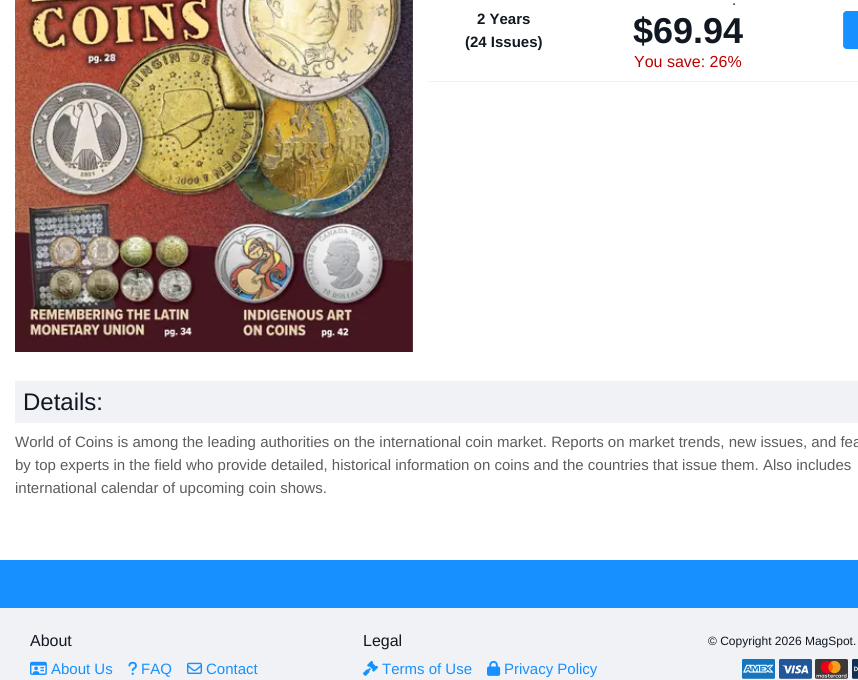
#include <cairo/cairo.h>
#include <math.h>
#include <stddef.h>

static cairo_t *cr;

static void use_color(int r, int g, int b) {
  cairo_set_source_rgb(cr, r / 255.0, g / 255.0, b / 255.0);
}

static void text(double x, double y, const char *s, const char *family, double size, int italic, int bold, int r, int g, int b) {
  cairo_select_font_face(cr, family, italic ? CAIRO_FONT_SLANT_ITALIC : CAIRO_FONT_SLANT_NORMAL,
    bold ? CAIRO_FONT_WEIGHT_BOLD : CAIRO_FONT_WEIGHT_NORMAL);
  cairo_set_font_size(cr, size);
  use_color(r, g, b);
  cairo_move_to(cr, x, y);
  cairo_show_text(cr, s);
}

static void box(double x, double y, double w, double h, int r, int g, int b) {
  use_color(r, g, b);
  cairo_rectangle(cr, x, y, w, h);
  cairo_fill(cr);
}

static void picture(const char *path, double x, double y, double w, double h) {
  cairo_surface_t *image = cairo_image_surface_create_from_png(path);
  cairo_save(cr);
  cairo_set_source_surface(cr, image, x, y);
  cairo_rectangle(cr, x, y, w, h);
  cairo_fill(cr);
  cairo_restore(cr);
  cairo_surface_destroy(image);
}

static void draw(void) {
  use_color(255, 255, 255);
  cairo_paint(cr);
  picture("img_01.png", 15, 0, 398, 352);
  box(428, 81, 430, 1, 240, 242, 245);
  use_color(22, 145, 255);
  cairo_new_path(cr);
  cairo_move_to(cr, 847, 11);
  cairo_line_to(cr, 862, 11);
  cairo_line_to(cr, 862, 49);
  cairo_line_to(cr, 847, 49);
  cairo_curve_to(cr, 845, 49, 843, 47, 843, 45);
  cairo_line_to(cr, 843, 15);
  cairo_curve_to(cr, 843, 13, 845, 11, 847, 11);
  cairo_close_path(cr);
  cairo_fill(cr);
  cairo_new_path(cr);
  cairo_move_to(cr, 847, 11);
  cairo_line_to(cr, 844, 12);
  cairo_line_to(cr, 845, 13);
  cairo_line_to(cr, 847, 12);
  cairo_line_to(cr, 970, 12);
  cairo_line_to(cr, 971, 11);
  cairo_close_path(cr);
  cairo_move_to(cr, 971, 49);
  cairo_line_to(cr, 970, 48);
  cairo_line_to(cr, 847, 48);
  cairo_line_to(cr, 845, 47);
  cairo_line_to(cr, 844, 48);
  cairo_line_to(cr, 847, 49);
  cairo_close_path(cr);
  cairo_fill(cr);
  use_color(45, 156, 255);
  cairo_new_path(cr);
  cairo_move_to(cr, 843, 15);
  cairo_line_to(cr, 843, 45);
  cairo_curve_to(cr, 843, 46, 843.5, 47, 844, 48);
  cairo_line_to(cr, 845, 47);
  cairo_curve_to(cr, 844, 47, 844, 46, 844, 45);
  cairo_line_to(cr, 844, 15);
  cairo_curve_to(cr, 844, 14, 844, 13, 845, 13);
  cairo_line_to(cr, 844, 12);
  cairo_curve_to(cr, 843.5, 13, 843, 14, 843, 15);
  cairo_close_path(cr);
  cairo_fill(cr);
  box(15, 381, 843, 42, 240, 242, 245);
  box(0, 608, 858, 72, 240, 242, 245);
  box(0, 560, 858, 48, 22, 145, 255);
  picture("img_02.png", 30, 661, 17, 14);
  picture("img_03.png", 128, 661, 9, 14);
  picture("img_04.png", 187, 662, 15, 12);
  picture("img_05.png", 363, 660, 15, 16);
  picture("img_06.png", 487, 660, 14, 16);
  picture("img_07.png", 742, 659, 33, 20);
  picture("img_08.png", 779, 659, 33, 20);
  picture("img_09.png", 815, 659, 33, 20);
  picture("img_10.png", 852, 659, 6, 20);
  text(477, 24, "2 Years", "Liberation Sans", 15, 0, 1, 17, 24, 34);
  text(465, 47, "(24 Issues)", "Liberation Sans", 15, 0, 1, 17, 24, 34);
  text(732, 5, ".", "Liberation Sans", 15, 0, 0, 17, 24, 34);
  text(633, 43, "$69.94", "Liberation Sans", 36, 0, 1, 17, 24, 34);
  text(634, 67, "You save: 26%", "Liberation Sans", 16, 0, 0, 188, 0, 0);
  text(23, 410, "Details:", "Liberation Sans", 24, 0, 0, 17, 24, 34);
  text(15, 447, "World of Coins is among the leading authorities on the international coin market. Reports on market trends, new issues, and fea", "Liberation Sans", 15, 0, 0, 92, 92, 92);
  text(15, 470, "by top experts in the field who provide detailed, historical information on coins and the countries that issue them. Also includes", "Liberation Sans", 15, 0, 0, 92, 92, 92);
  text(15, 493, "international calendar of upcoming coin shows.", "Liberation Sans", 15, 0, 0, 92, 92, 92);
  text(30, 646, "About", "Liberation Sans", 16, 0, 0, 17, 24, 34);
  text(51, 674, "About Us", "Liberation Sans", 15, 0, 0, 22, 145, 255);
  text(141, 674, "FAQ", "Liberation Sans", 15, 0, 0, 22, 145, 255);
  text(206, 674, "Contact", "Liberation Sans", 15, 0, 0, 22, 145, 255);
  text(363, 646, "Legal", "Liberation Sans", 16, 0, 0, 17, 24, 34);
  text(382, 674, "Terms of Use", "Liberation Sans", 15, 0, 0, 22, 145, 255);
  text(504, 674, "Privacy Policy", "Liberation Sans", 15, 0, 0, 22, 145, 255);
  text(708, 645, "© Copyright 2026 MagSpot.", "Liberation Sans", 12, 0, 0, 17, 24, 34);
}

int main(void) {
  cairo_surface_t *surface = cairo_image_surface_create(CAIRO_FORMAT_RGB24, 858, 680);
  cr = cairo_create(surface);
  cairo_font_options_t *options = cairo_font_options_create();
  cairo_font_options_set_hint_metrics(options, CAIRO_HINT_METRICS_OFF);
  cairo_font_options_set_hint_style(options, CAIRO_HINT_STYLE_NONE);
  cairo_set_font_options(cr, options);
  cairo_set_miter_limit(cr, 4);
  draw();
  cairo_surface_write_to_png(surface, "out.png");
  cairo_font_options_destroy(options);
  cairo_destroy(cr);
  cairo_surface_destroy(surface);
  return 0;
}
